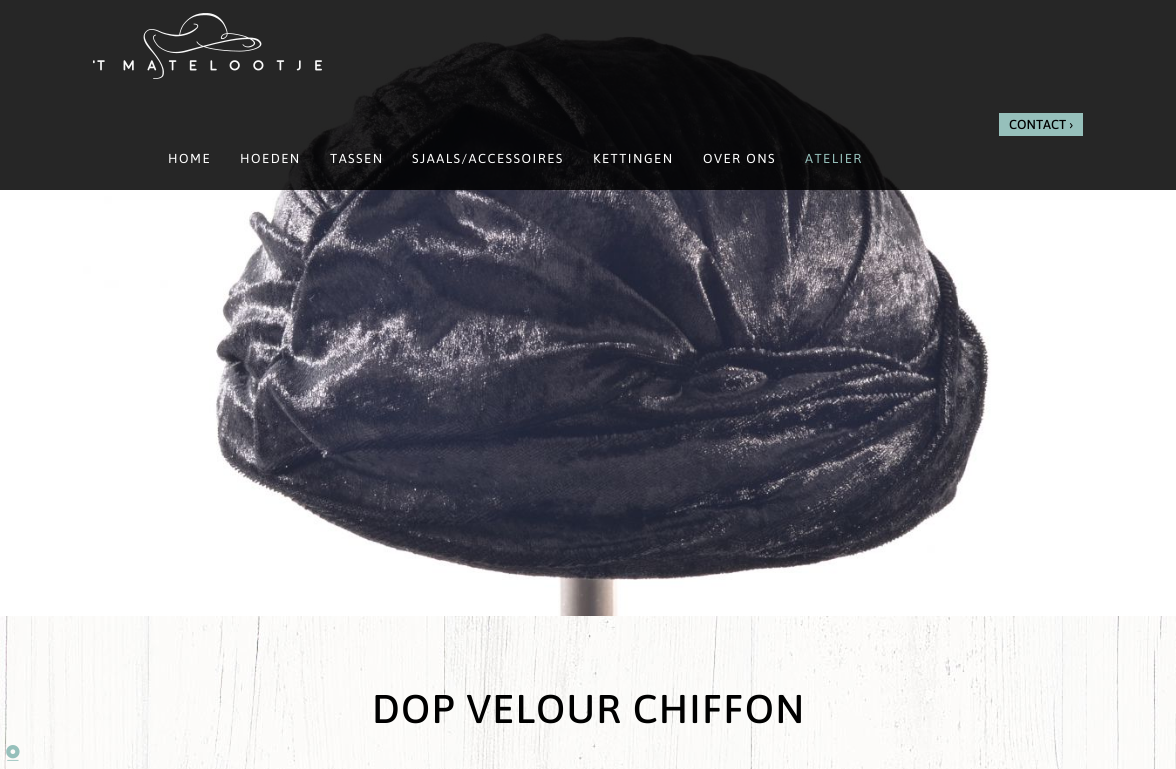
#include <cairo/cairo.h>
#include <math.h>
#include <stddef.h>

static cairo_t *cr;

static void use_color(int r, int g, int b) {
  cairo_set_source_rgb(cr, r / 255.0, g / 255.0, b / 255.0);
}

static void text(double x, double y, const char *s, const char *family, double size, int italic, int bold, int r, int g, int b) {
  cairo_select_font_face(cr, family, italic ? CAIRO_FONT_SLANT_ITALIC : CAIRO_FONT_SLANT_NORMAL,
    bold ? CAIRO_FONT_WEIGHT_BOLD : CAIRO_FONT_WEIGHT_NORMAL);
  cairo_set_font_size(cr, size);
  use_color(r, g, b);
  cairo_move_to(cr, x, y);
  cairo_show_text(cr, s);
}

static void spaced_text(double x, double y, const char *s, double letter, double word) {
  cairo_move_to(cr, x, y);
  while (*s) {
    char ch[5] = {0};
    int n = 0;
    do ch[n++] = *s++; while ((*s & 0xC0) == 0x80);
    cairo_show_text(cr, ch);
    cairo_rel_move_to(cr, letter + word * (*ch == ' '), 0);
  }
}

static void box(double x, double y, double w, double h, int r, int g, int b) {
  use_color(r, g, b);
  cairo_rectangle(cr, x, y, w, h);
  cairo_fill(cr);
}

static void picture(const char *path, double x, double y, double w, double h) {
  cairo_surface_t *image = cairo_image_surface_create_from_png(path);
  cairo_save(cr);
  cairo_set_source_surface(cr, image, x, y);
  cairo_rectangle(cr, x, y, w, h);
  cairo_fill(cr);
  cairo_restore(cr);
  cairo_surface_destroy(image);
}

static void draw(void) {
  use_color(255, 255, 255);
  cairo_paint(cr);
  picture("img_01.png", 0, 616, 1176, 153);
  picture("img_02.png", 0, 0, 1176, 616);
  cairo_set_source_rgba(cr, 0, 0, 0, 0.85);
  cairo_rectangle(cr, 0, 0, 1176, 190);
  cairo_fill(cr);
  picture("img_03.png", 93, 13, 229, 66);
  box(999, 113, 84, 23, 150, 192, 187);
  picture("img_04.png", 6, 745, 14, 16);
  text(1009, 129, "CONTACT ›", "Asap Medium", 13, 0, 0, 0, 0, 0);
  cairo_select_font_face(cr, "Asap", CAIRO_FONT_SLANT_NORMAL, CAIRO_FONT_WEIGHT_NORMAL);
  use_color(255, 255, 255);
  spaced_text(168, 163, "HOME", 1.5, 0);
  spaced_text(240, 163, "HOEDEN", 1.5, 0);
  spaced_text(330, 163, "TASSEN", 1.5, 0);
  spaced_text(412, 163, "SJAALS/ACCESSOIRES", 1.5, 0);
  spaced_text(593, 163, "KETTINGEN", 1.5, 0);
  spaced_text(703, 163, "OVER ONS", 1.5, 0);
  use_color(150, 192, 187);
  spaced_text(805, 163, "ATELIER", 1.5, 0);
  cairo_select_font_face(cr, "Asap Medium", CAIRO_FONT_SLANT_NORMAL, CAIRO_FONT_WEIGHT_NORMAL);
  cairo_set_font_size(cr, 40);
  use_color(0, 0, 0);
  spaced_text(372, 723, "DOP VELOUR CHIFFON", 1.25, 0);
}

int main(void) {
  cairo_surface_t *surface = cairo_image_surface_create(CAIRO_FORMAT_RGB24, 1176, 769);
  cr = cairo_create(surface);
  cairo_font_options_t *options = cairo_font_options_create();
  cairo_font_options_set_hint_metrics(options, CAIRO_HINT_METRICS_OFF);
  cairo_font_options_set_hint_style(options, CAIRO_HINT_STYLE_NONE);
  cairo_set_font_options(cr, options);
  cairo_set_miter_limit(cr, 4);
  draw();
  cairo_surface_write_to_png(surface, "out.png");
  cairo_font_options_destroy(options);
  cairo_destroy(cr);
  cairo_surface_destroy(surface);
  return 0;
}
